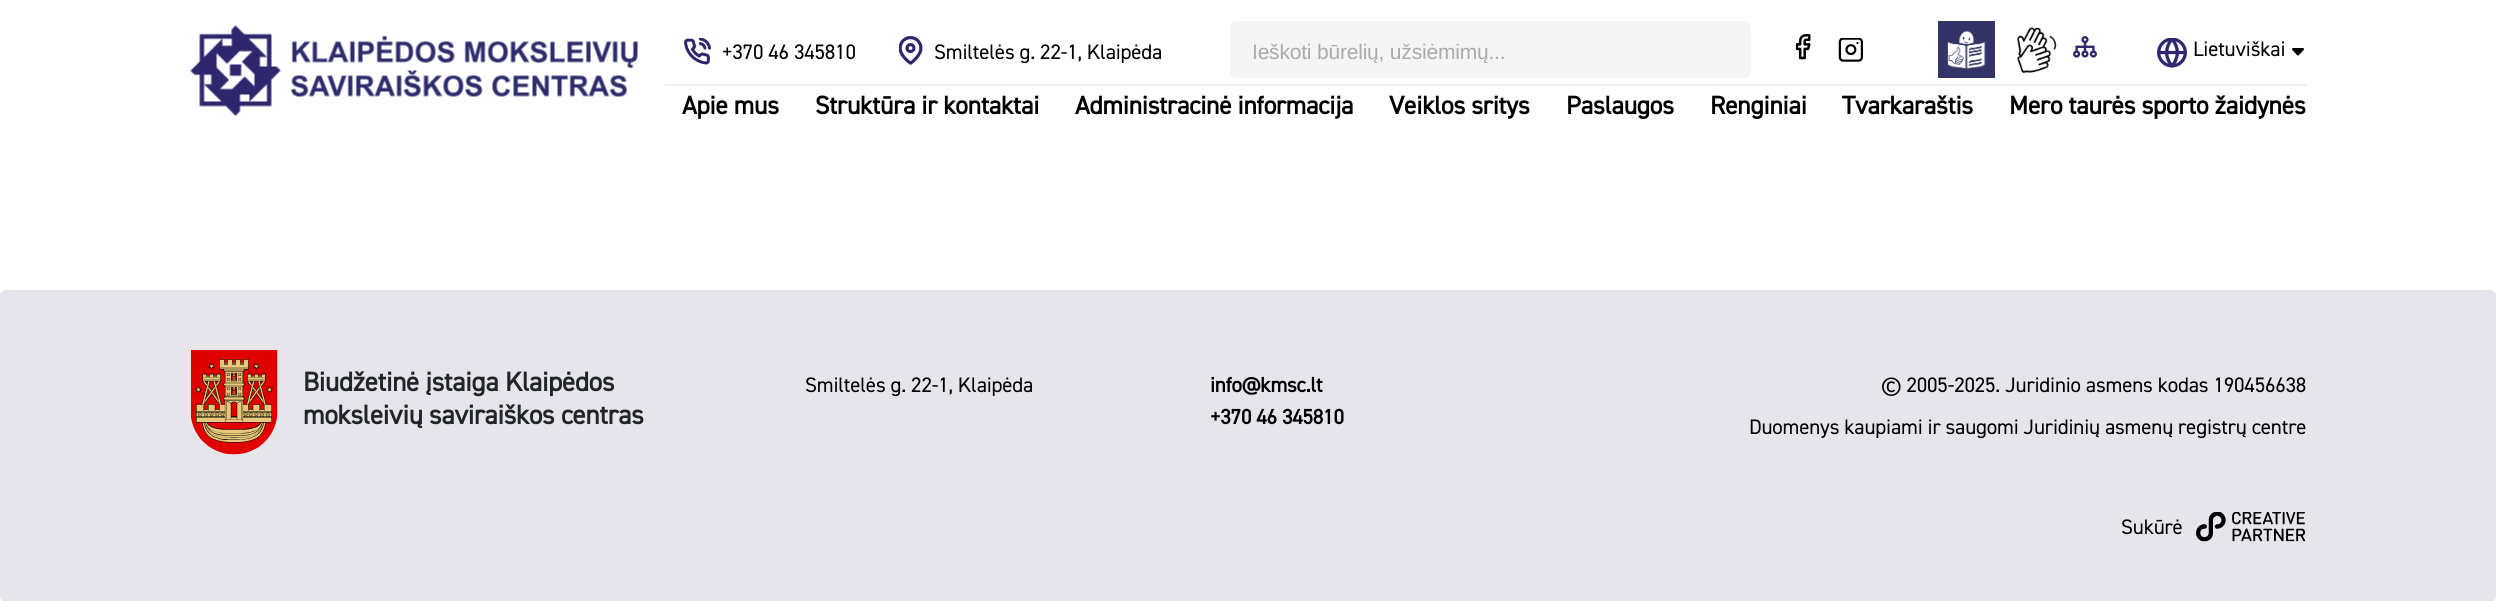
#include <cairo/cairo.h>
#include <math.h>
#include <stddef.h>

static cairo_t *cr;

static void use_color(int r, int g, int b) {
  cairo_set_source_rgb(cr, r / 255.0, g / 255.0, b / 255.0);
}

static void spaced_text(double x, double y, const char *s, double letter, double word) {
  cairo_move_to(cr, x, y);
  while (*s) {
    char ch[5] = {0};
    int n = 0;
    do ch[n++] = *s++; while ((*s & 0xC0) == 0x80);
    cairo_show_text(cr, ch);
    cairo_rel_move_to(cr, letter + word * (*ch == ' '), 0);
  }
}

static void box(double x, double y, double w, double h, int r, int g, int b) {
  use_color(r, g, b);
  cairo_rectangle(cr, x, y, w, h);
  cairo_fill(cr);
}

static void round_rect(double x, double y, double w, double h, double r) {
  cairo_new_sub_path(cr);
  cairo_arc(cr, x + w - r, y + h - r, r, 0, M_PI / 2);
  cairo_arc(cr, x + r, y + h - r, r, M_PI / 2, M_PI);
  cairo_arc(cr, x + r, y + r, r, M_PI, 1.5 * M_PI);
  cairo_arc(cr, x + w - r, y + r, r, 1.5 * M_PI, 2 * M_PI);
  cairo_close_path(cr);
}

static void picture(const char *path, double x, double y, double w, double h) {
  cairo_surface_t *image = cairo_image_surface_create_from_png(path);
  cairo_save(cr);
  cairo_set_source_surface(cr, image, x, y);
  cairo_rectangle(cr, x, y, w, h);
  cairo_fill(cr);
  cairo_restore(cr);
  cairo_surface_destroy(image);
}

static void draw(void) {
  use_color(255, 255, 255);
  cairo_paint(cr);
  picture("img_01.png", 190, 25, 448, 91);
  box(665, 84, 1641, 2, 238, 238, 238);
  picture("img_02.png", 684, 38, 27, 27);
  picture("img_03.png", 899, 36, 24, 29);
  use_color(245, 245, 245);
  round_rect(1230, 21, 521, 57, 6);
  cairo_fill(cr);
  picture("img_04.png", 1796, 34, 15, 26);
  picture("img_05.png", 1838, 38, 25, 24);
  picture("img_06.png", 1938, 21, 57, 57);
  picture("img_07.png", 2017, 27, 40, 46);
  picture("img_08.png", 2073, 36, 24, 22);
  picture("img_09.png", 2157, 38, 30, 30);
  picture("img_10.png", 2292, 48, 12, 8);
  use_color(229, 229, 235);
  round_rect(0, 290, 2496, 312, 6);
  cairo_fill(cr);
  picture("img_11.png", 191, 350, 87, 105);
  picture("img_12.png", 2196, 512, 109, 30);
  cairo_select_font_face(cr, "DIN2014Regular", CAIRO_FONT_SLANT_NORMAL, CAIRO_FONT_WEIGHT_NORMAL);
  cairo_set_font_size(cr, 21);
  use_color(0, 0, 0);
  spaced_text(722, 59, "+370 46 345810", -0.2, 0);
  spaced_text(934, 59, "Smiltelės g. 22-1, Klaipėda", -0.2, 0);
  cairo_save(cr);
  cairo_rectangle(cr, 1253, 39, 424, 24);
  cairo_clip(cr);
  cairo_select_font_face(cr, "Liberation Sans", CAIRO_FONT_SLANT_NORMAL, CAIRO_FONT_WEIGHT_NORMAL);
  use_color(170, 170, 170);
  spaced_text(1252, 59, "Ieškoti būrelių, užsiėmimų...", -0.2, 0);
  cairo_restore(cr);
  spaced_text(2193, 56, "Lietuviškai", -0.2, 0);
  cairo_select_font_face(cr, "DIN2014Regular", CAIRO_FONT_SLANT_NORMAL, CAIRO_FONT_WEIGHT_BOLD);
  cairo_set_font_size(cr, 25.5);
  spaced_text(682, 114, "Apie mus", -0.25, 0);
  spaced_text(815, 114, "Struktūra ir kontaktai", -0.25, 0);
  spaced_text(1075, 114, "Administracinė informacija", -0.25, 0);
  spaced_text(1389, 114, "Veiklos sritys", -0.25, 0);
  spaced_text(1566, 114, "Paslaugos", -0.25, 0);
  spaced_text(1710, 114, "Renginiai", -0.25, 0);
  spaced_text(1842, 114, "Tvarkaraštis", -0.25, 0);
  spaced_text(2009, 114, "Mero taurės sporto žaidynės", -0.25, 0);
  cairo_set_font_size(cr, 27);
  use_color(33, 37, 41);
  spaced_text(303, 391, "Biudžetinė įstaiga Klaipėdos", -0.25, 0);
  spaced_text(303, 424, "moksleivių saviraiškos centras", -0.25, 0);
  cairo_select_font_face(cr, "DIN2014Regular", CAIRO_FONT_SLANT_NORMAL, CAIRO_FONT_WEIGHT_NORMAL);
  cairo_set_font_size(cr, 21);
  use_color(0, 0, 0);
  spaced_text(805, 392, "Smiltelės g. 22-1, Klaipėda", -0.2, 0);
  cairo_select_font_face(cr, "DIN2014Regular", CAIRO_FONT_SLANT_NORMAL, CAIRO_FONT_WEIGHT_BOLD);
  spaced_text(1210, 392, "info@kmsc.lt", -0.2, 0);
  spaced_text(1210, 424, "+370 46 345810", -0.2, 0);
  cairo_select_font_face(cr, "DIN2014Regular", CAIRO_FONT_SLANT_NORMAL, CAIRO_FONT_WEIGHT_NORMAL);
  spaced_text(1881, 392, "© 2005-2025. Juridinio asmens kodas 190456638", -0.2, 0);
  spaced_text(1749, 434, "Duomenys kaupiami ir saugomi Juridinių asmenų registrų centre", -0.2, 0);
  spaced_text(2121, 534, "Sukūrė", -0.2, 0);
}

int main(void) {
  cairo_surface_t *surface = cairo_image_surface_create(CAIRO_FORMAT_RGB24, 2496, 601);
  cr = cairo_create(surface);
  cairo_font_options_t *options = cairo_font_options_create();
  cairo_font_options_set_hint_metrics(options, CAIRO_HINT_METRICS_OFF);
  cairo_font_options_set_hint_style(options, CAIRO_HINT_STYLE_NONE);
  cairo_set_font_options(cr, options);
  cairo_set_miter_limit(cr, 4);
  draw();
  cairo_surface_write_to_png(surface, "out.png");
  cairo_font_options_destroy(options);
  cairo_destroy(cr);
  cairo_surface_destroy(surface);
  return 0;
}
